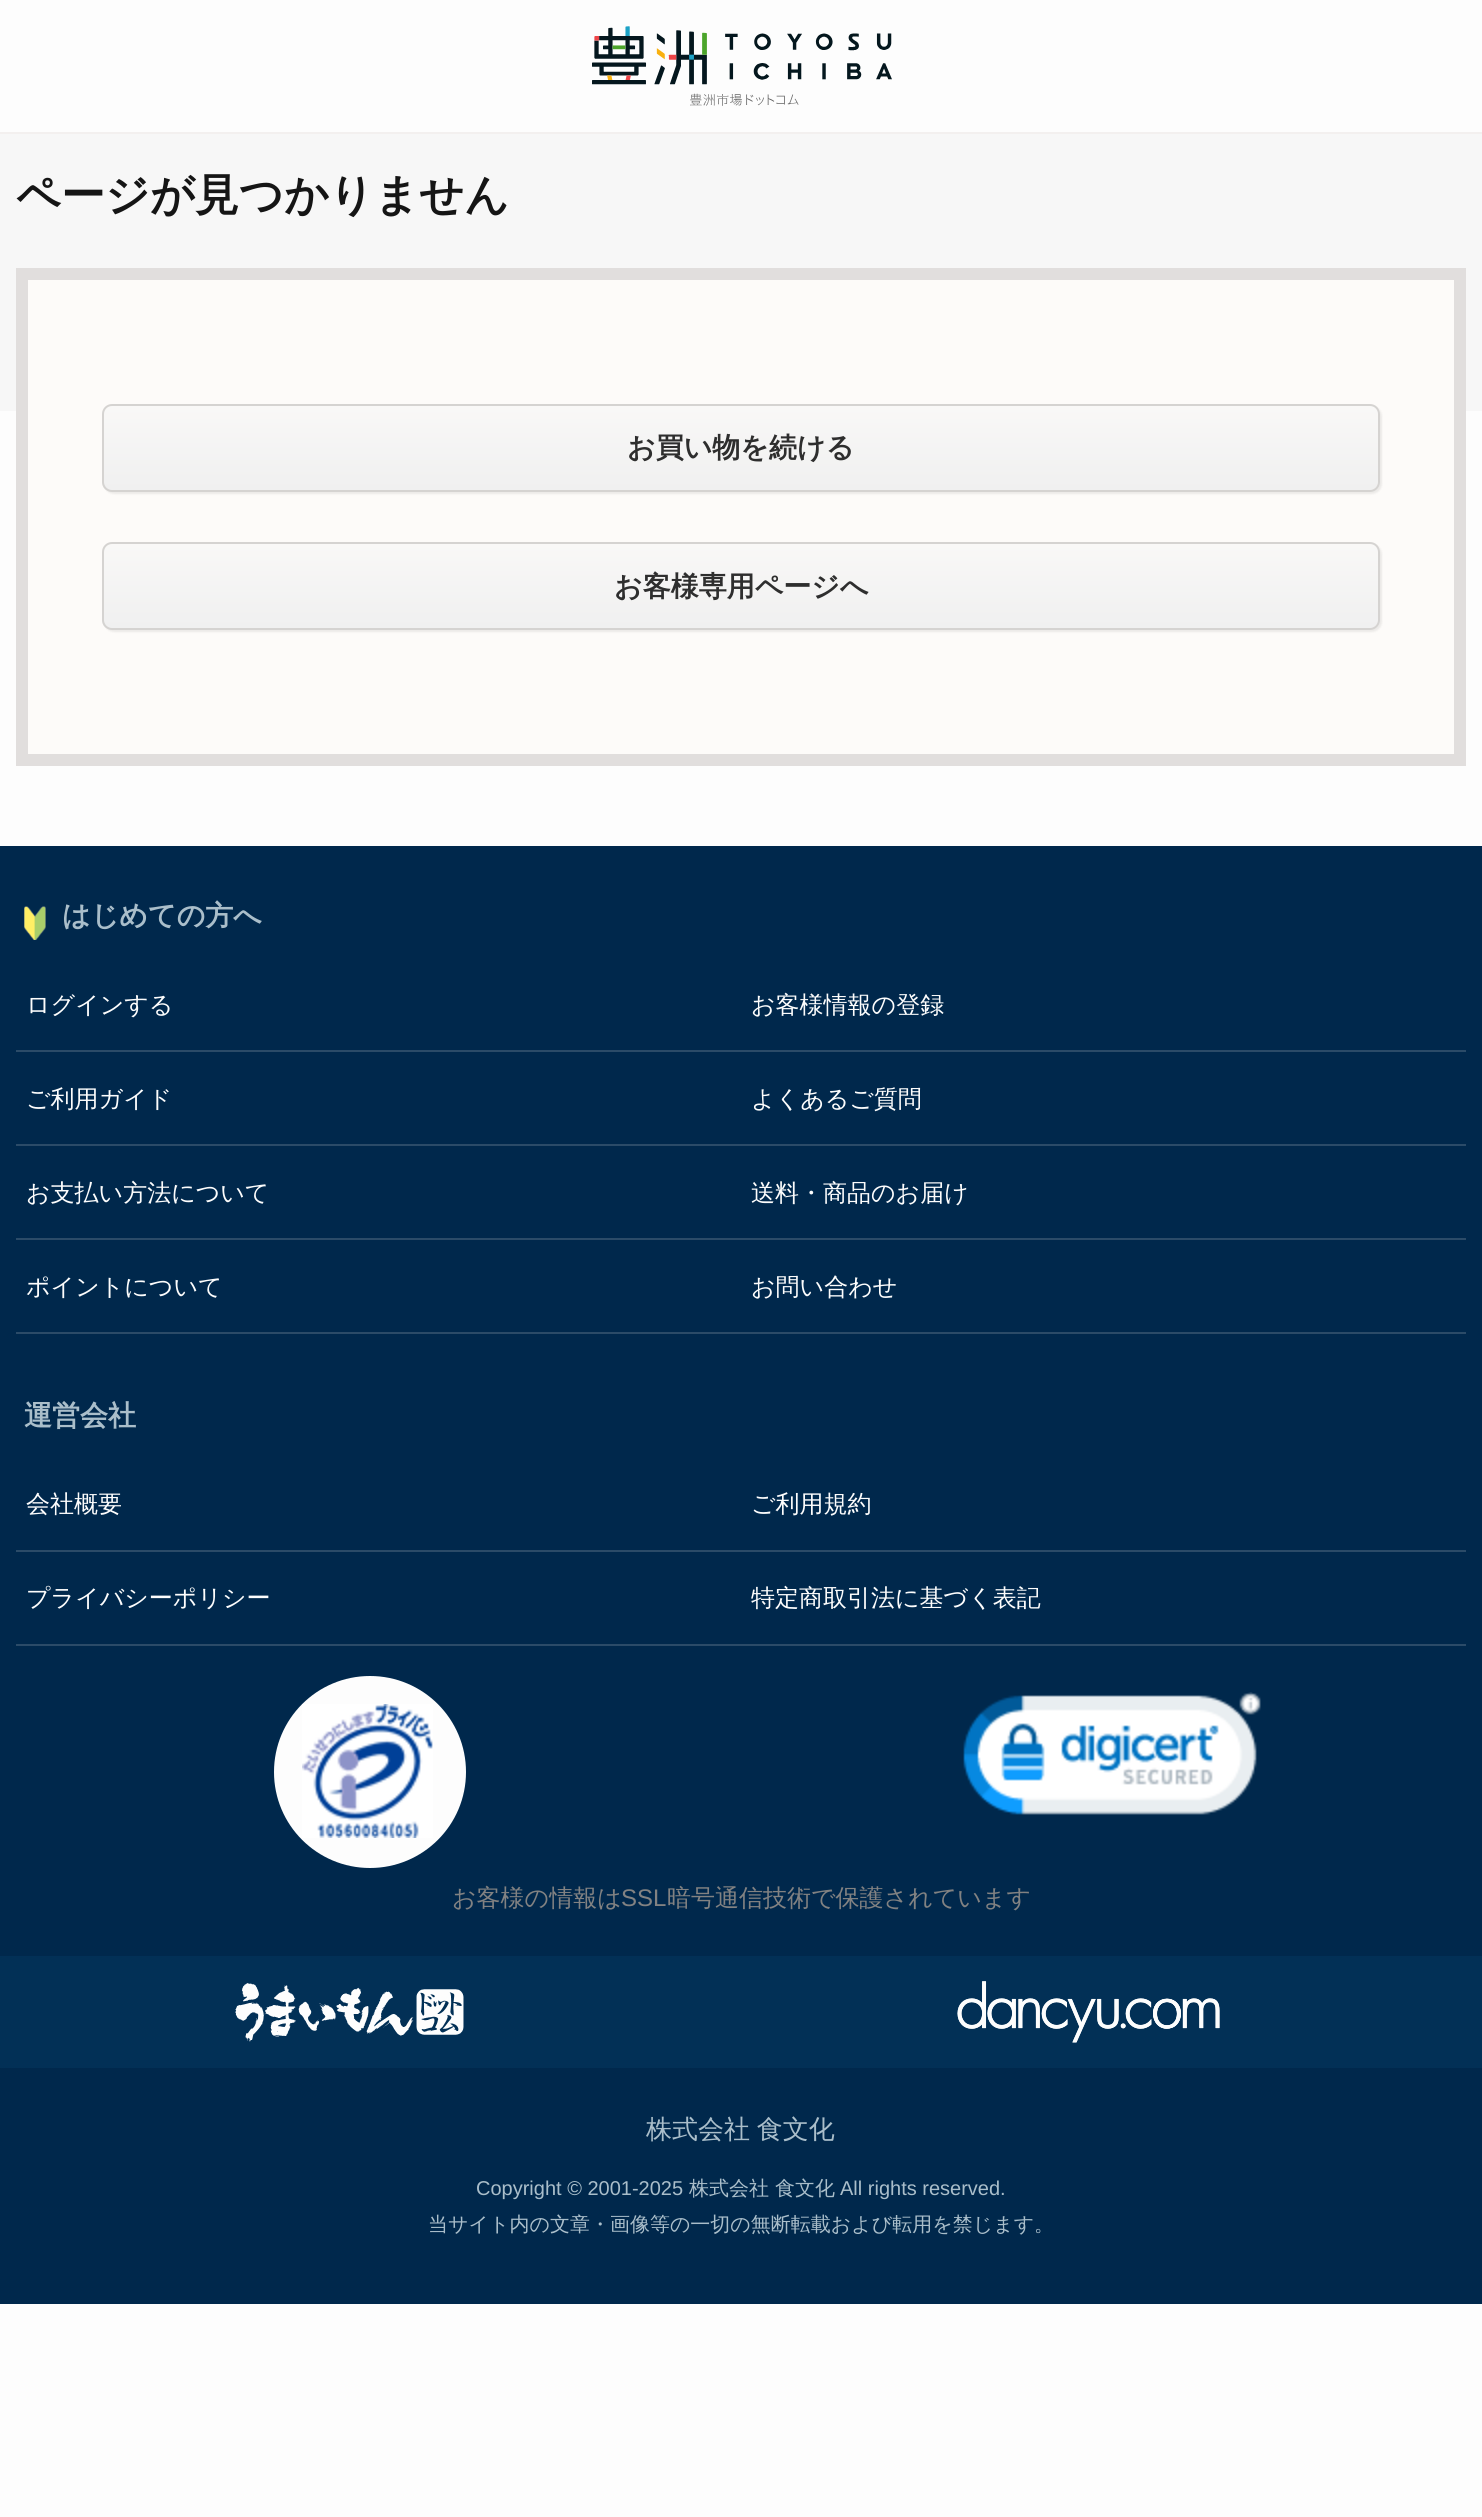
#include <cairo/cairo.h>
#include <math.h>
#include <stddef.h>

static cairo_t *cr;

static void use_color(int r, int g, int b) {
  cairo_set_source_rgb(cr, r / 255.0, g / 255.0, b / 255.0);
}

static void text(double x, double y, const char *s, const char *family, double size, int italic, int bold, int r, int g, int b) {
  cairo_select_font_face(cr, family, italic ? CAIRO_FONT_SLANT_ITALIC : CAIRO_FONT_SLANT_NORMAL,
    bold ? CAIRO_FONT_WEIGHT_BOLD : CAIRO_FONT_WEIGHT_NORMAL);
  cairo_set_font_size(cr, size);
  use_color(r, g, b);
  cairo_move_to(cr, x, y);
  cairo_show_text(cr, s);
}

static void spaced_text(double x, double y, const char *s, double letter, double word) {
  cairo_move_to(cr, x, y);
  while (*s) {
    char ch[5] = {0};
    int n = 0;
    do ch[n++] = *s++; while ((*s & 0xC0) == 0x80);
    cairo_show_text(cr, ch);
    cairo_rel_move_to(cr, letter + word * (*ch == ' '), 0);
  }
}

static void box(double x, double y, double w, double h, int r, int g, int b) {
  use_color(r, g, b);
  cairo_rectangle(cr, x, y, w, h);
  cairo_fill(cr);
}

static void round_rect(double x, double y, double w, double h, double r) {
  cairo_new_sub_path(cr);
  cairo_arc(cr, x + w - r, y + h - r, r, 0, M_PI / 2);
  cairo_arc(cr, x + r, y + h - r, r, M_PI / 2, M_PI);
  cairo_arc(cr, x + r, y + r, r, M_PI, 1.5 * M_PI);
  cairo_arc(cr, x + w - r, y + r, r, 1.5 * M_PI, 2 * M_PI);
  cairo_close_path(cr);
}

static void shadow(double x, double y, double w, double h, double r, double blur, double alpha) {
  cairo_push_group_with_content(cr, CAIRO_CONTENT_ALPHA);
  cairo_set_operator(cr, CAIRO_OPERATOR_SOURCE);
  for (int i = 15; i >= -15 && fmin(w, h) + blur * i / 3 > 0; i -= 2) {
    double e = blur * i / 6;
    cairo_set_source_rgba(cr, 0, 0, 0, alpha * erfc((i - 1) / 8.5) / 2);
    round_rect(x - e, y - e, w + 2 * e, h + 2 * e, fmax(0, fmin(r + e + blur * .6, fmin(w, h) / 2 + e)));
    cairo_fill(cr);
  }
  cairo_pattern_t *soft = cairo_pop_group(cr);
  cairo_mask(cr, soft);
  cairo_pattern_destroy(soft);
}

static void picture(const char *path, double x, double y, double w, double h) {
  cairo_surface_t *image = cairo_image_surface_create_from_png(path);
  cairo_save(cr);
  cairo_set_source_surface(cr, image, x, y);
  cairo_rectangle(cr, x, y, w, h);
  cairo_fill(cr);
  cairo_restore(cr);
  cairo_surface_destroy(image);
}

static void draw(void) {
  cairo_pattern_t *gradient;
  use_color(253, 253, 253);
  cairo_paint(cr);
  picture("img_01.png", 592, 26, 300, 80);
  box(0, 134, 1482, 277, 247, 247, 247);
  box(0, 132, 1482, 2, 243, 240, 239);
  use_color(253, 251, 249);
  cairo_rectangle(cr, 22, 274, 1438, 486);
  cairo_fill_preserve(cr);
  use_color(225, 222, 221);
  cairo_set_line_width(cr, 12);
  cairo_stroke(cr);
  use_color(6, 0, 1);
  shadow(104, 406, 1278, 88, 10, 1, 0.07);
  cairo_save(cr);
  round_rect(102, 404, 1278, 88, 10);
  cairo_clip(cr);
  gradient = cairo_pattern_create_linear(741, 406, 741, 490);
  cairo_pattern_add_color_stop_rgba(gradient, 0, 0.976, 0.973, 0.969, 1);
  cairo_pattern_add_color_stop_rgba(gradient, 1, 0.941, 0.941, 0.941, 1);
  cairo_set_source(cr, gradient);
  cairo_pattern_destroy(gradient);
  cairo_rectangle(cr, 102, 406, 1278, 84);
  cairo_fill(cr);
  cairo_restore(cr);
  round_rect(103, 405, 1276, 86, 9);
  use_color(213, 211, 209);
  cairo_set_line_width(cr, 2);
  cairo_stroke(cr);
  use_color(6, 0, 1);
  shadow(104, 544, 1278, 88, 10, 1, 0.07);
  cairo_save(cr);
  round_rect(102, 542, 1278, 88, 10);
  cairo_clip(cr);
  gradient = cairo_pattern_create_linear(741, 544, 741, 628);
  cairo_pattern_add_color_stop_rgba(gradient, 0, 0.976, 0.973, 0.969, 1);
  cairo_pattern_add_color_stop_rgba(gradient, 1, 0.941, 0.941, 0.941, 1);
  cairo_set_source(cr, gradient);
  cairo_pattern_destroy(gradient);
  cairo_rectangle(cr, 102, 544, 1278, 84);
  cairo_fill(cr);
  cairo_restore(cr);
  round_rect(103, 543, 1276, 86, 9);
  use_color(213, 211, 209);
  cairo_stroke(cr);
  box(0, 846, 1482, 1458, 0, 40, 76);
  picture("img_02.png", 24, 906, 22, 34);
  box(16, 1050, 1450, 2, 43, 75, 104);
  box(16, 1144, 1450, 2, 43, 75, 104);
  box(16, 1238, 1450, 2, 43, 75, 104);
  box(16, 1332, 1450, 2, 43, 75, 104);
  box(16, 1550, 1450, 2, 43, 75, 104);
  box(16, 1644, 1450, 2, 43, 75, 104);
  use_color(253, 253, 253);
  cairo_arc(cr, 370, 1772, 96, 0, 2 * M_PI);
  cairo_fill(cr);
  picture("img_03.png", 302, 1704, 131, 134);
  picture("img_04.png", 963, 1692, 298, 123);
  box(0, 1956, 1482, 112, 2, 48, 86);
  picture("img_05.png", 235, 1983, 229, 59);
  picture("img_06.png", 957, 1981, 263, 62);
  text(16, 210, "ページが見つかりません", "WenQuanYi Zen Hei", 44, 0, 1, 21, 21, 21);
  text(627, 457, "お買い物を続ける", "WenQuanYi Zen Hei", 28, 0, 1, 46, 46, 46);
  text(614, 596, "お客様専用ページへ", "WenQuanYi Zen Hei", 28, 0, 1, 46, 46, 46);
  text(62, 925, "はじめての方へ", "WenQuanYi Zen Hei", 28, 0, 1, 170, 190, 202);
  text(26, 1013, "ログインする", "WenQuanYi Zen Hei Medium", 24, 0, 0, 253, 253, 253);
  text(751, 1013, "お客様情報の登録", "WenQuanYi Zen Hei Medium", 24, 0, 0, 253, 253, 253);
  text(26, 1107, "ご利用ガイド", "WenQuanYi Zen Hei Medium", 24, 0, 0, 253, 253, 253);
  text(751, 1107, "よくあるご質問", "WenQuanYi Zen Hei Medium", 24, 0, 0, 253, 253, 253);
  text(26, 1201, "お支払い方法について", "WenQuanYi Zen Hei Medium", 24, 0, 0, 253, 253, 253);
  text(751, 1201, "送料・商品のお届け", "WenQuanYi Zen Hei Medium", 24, 0, 0, 253, 253, 253);
  text(26, 1295, "ポイントについて", "WenQuanYi Zen Hei Medium", 24, 0, 0, 253, 253, 253);
  text(751, 1295, "お問い合わせ", "WenQuanYi Zen Hei Medium", 24, 0, 0, 253, 253, 253);
  text(24, 1425, "運営会社", "WenQuanYi Zen Hei", 28, 0, 1, 170, 190, 202);
  text(26, 1512, "会社概要", "WenQuanYi Zen Hei Medium", 24, 0, 0, 253, 253, 253);
  text(751, 1512, "ご利用規約", "WenQuanYi Zen Hei Medium", 24, 0, 0, 253, 253, 253);
  text(26, 1606, "プライバシーポリシー", "WenQuanYi Zen Hei Medium", 24, 0, 0, 253, 253, 253);
  text(751, 1606, "特定商取引法に基づく表記", "WenQuanYi Zen Hei Medium", 24, 0, 0, 253, 253, 253);
  text(452, 1906, "お客様の情報は", "WenQuanYi Zen Hei Medium", 24, 0, 0, 130, 130, 130);
  text(621, 1906, "SSL", "Liberation Sans", 24, 0, 0, 130, 130, 130);
  text(667, 1906, "暗号通信技術で保護されています", "WenQuanYi Zen Hei Medium", 24, 0, 0, 130, 130, 130);
  cairo_set_font_size(cr, 26);
  use_color(170, 190, 202);
  spaced_text(646, 2138, "株式会社 食文化", 0, -1);
  text(476, 2195, "Copyright © 2001-2025", "Liberation Sans", 20, 0, 0, 170, 190, 202);
  text(689, 2195, "株式会社", "WenQuanYi Zen Hei Medium", 20, 0, 0, 170, 190, 202);
  text(775, 2195, "食文化", "WenQuanYi Zen Hei Medium", 20, 0, 0, 170, 190, 202);
  text(840, 2195, "All rights reserved.", "Liberation Sans", 20, 0, 0, 170, 190, 202);
  text(428, 2231, "当サイト内の文章・画像等の一切の無断転載および転用を禁じます。", "WenQuanYi Zen Hei Medium", 20, 0, 0, 170, 190, 202);
}

int main(void) {
  cairo_surface_t *surface = cairo_image_surface_create(CAIRO_FORMAT_RGB24, 1482, 2517);
  cr = cairo_create(surface);
  cairo_font_options_t *options = cairo_font_options_create();
  cairo_font_options_set_hint_metrics(options, CAIRO_HINT_METRICS_OFF);
  cairo_font_options_set_hint_style(options, CAIRO_HINT_STYLE_NONE);
  cairo_set_font_options(cr, options);
  cairo_set_miter_limit(cr, 4);
  draw();
  cairo_surface_write_to_png(surface, "out.png");
  cairo_font_options_destroy(options);
  cairo_destroy(cr);
  cairo_surface_destroy(surface);
  return 0;
}
